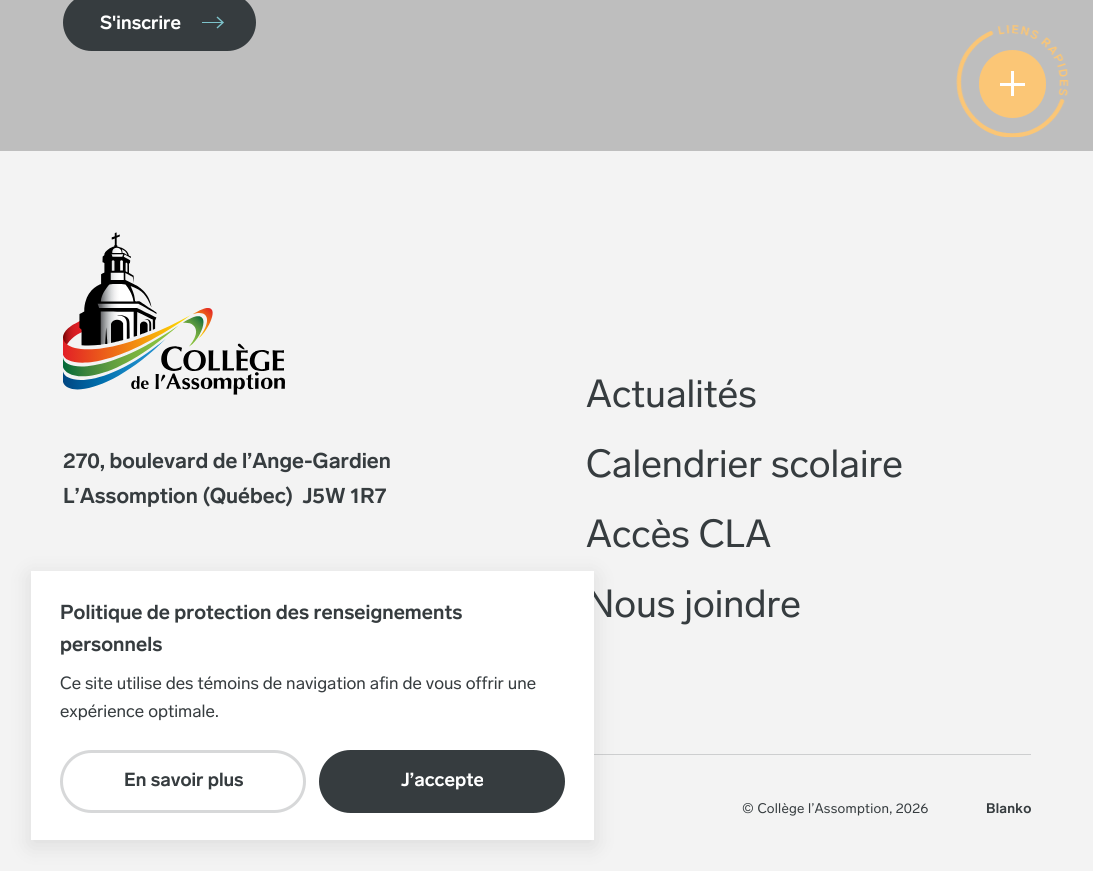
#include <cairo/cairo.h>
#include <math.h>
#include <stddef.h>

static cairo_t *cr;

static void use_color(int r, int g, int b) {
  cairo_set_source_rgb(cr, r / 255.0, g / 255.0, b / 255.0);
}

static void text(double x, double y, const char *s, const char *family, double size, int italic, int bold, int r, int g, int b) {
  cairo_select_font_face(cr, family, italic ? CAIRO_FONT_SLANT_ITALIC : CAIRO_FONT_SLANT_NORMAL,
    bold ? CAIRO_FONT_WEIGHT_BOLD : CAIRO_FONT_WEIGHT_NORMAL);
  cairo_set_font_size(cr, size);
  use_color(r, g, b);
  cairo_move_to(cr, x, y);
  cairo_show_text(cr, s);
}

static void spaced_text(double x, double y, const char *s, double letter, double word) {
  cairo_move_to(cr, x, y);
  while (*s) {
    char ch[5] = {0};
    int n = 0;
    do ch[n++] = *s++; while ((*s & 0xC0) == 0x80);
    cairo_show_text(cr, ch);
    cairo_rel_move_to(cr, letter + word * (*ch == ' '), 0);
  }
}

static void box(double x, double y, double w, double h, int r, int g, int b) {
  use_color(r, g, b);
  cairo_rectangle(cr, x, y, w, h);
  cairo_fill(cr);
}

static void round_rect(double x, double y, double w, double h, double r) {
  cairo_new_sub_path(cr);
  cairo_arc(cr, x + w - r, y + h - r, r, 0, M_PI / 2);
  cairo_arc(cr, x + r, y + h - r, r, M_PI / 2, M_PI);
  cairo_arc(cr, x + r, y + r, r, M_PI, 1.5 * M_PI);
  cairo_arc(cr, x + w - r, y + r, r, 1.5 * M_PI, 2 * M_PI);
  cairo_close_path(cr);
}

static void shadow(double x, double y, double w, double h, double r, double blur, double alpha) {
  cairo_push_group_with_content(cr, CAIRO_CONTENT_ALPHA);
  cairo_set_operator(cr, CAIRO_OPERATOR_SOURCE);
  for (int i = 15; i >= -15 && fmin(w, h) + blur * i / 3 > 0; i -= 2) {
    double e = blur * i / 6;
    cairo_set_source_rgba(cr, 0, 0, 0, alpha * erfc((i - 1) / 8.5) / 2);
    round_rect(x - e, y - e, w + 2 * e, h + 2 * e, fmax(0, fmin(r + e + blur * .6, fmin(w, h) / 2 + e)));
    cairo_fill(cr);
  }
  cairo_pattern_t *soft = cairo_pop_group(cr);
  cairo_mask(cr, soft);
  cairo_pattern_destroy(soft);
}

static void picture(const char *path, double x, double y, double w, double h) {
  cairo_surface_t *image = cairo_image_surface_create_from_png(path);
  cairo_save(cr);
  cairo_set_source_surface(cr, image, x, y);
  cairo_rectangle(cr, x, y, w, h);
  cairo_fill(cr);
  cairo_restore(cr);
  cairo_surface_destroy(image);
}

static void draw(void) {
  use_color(243, 243, 243);
  cairo_paint(cr);
  box(0, 0, 1093, 151, 190, 190, 190);
  use_color(54, 60, 63);
  round_rect(63, -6, 193, 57, 28.5);
  cairo_fill(cr);
  cairo_new_path(cr);
  cairo_move_to(cr, 217, 17);
  cairo_line_to(cr, 223, 22.5);
  cairo_line_to(cr, 217, 28);
  use_color(125, 195, 203);
  cairo_set_line_width(cr, 1.4);
  cairo_stroke(cr);
  box(202, 22, 21, 1, 125, 195, 203);
  picture("img_01.png", 63, 232, 222, 163);
  box(594, 754, 437, 1, 205, 206, 207);
  picture("img_02.png", 956, 25, 113, 113);
  use_color(251, 198, 118);
  round_rect(979, 50, 67, 68, 33.5);
  cairo_fill(cr);
  box(1000, 83, 25, 3, 255, 255, 255);
  box(1011, 71, 3, 25, 255, 255, 255);
  use_color(0, 0, 0);
  shadow(31, 576, 563, 269, 0, 11, 0.1);
  text(100, 29, "S'inscrire", "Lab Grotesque", 18.75, 0, 1, 255, 255, 255);
  text(63, 468, "270, boulevard de l’Ange-Gardien", "Lab Grotesque", 21.25, 0, 1, 54, 60, 63);
  text(63, 503, "L’Assomption (Québec)  J5W 1R7", "Lab Grotesque", 21.25, 0, 1, 54, 60, 63);
  text(586, 407, "Actualités", "Lab Grotesque", 38.75, 0, 0, 54, 60, 63);
  text(586, 477, "Calendrier scolaire", "Lab Grotesque", 38.75, 0, 0, 54, 60, 63);
  text(586, 547, "Accès CLA", "Lab Grotesque", 38.75, 0, 0, 54, 60, 63);
  text(586, 617, "Nous joindre", "Lab Grotesque", 38.75, 0, 0, 54, 60, 63);
  cairo_set_font_size(cr, 13.75);
  spaced_text(742, 813, "© Collège l’Assomption, 2026", 0.25, 0);
  cairo_select_font_face(cr, "Lab Grotesque", CAIRO_FONT_SLANT_NORMAL, CAIRO_FONT_WEIGHT_BOLD);
  spaced_text(986, 813, "Blanko", 0.25, 0);
  box(31, 571, 563, 269, 255, 255, 255);
  text(60, 619, "Politique de protection des renseignements", "Lab Grotesque", 20, 0, 1, 54, 60, 63);
  text(60, 651, "personnels", "Lab Grotesque", 20, 0, 1, 54, 60, 63);
  text(60, 689, "Ce site utilise des témoins de navigation afin de vous offrir une", "Lab Grotesque", 17.5, 0, 0, 54, 60, 63);
  text(60, 717, "expérience optimale.", "Lab Grotesque", 17.5, 0, 0, 54, 60, 63);
  round_rect(61.5, 751.5, 243, 60, 30);
  use_color(215, 216, 217);
  cairo_set_line_width(cr, 3);
  cairo_stroke(cr);
  text(124, 786, "En savoir plus", "Lab Grotesque", 18.75, 0, 1, 54, 60, 63);
  round_rect(320.5, 751.5, 243, 60, 30);
  cairo_fill_preserve(cr);
  cairo_stroke(cr);
  text(401, 786, "J’accepte", "Lab Grotesque", 18.75, 0, 1, 255, 255, 255);
}

int main(void) {
  cairo_surface_t *surface = cairo_image_surface_create(CAIRO_FORMAT_RGB24, 1093, 871);
  cr = cairo_create(surface);
  cairo_font_options_t *options = cairo_font_options_create();
  cairo_font_options_set_hint_metrics(options, CAIRO_HINT_METRICS_OFF);
  cairo_font_options_set_hint_style(options, CAIRO_HINT_STYLE_NONE);
  cairo_set_font_options(cr, options);
  cairo_set_miter_limit(cr, 4);
  draw();
  cairo_surface_write_to_png(surface, "out.png");
  cairo_font_options_destroy(options);
  cairo_destroy(cr);
  cairo_surface_destroy(surface);
  return 0;
}
